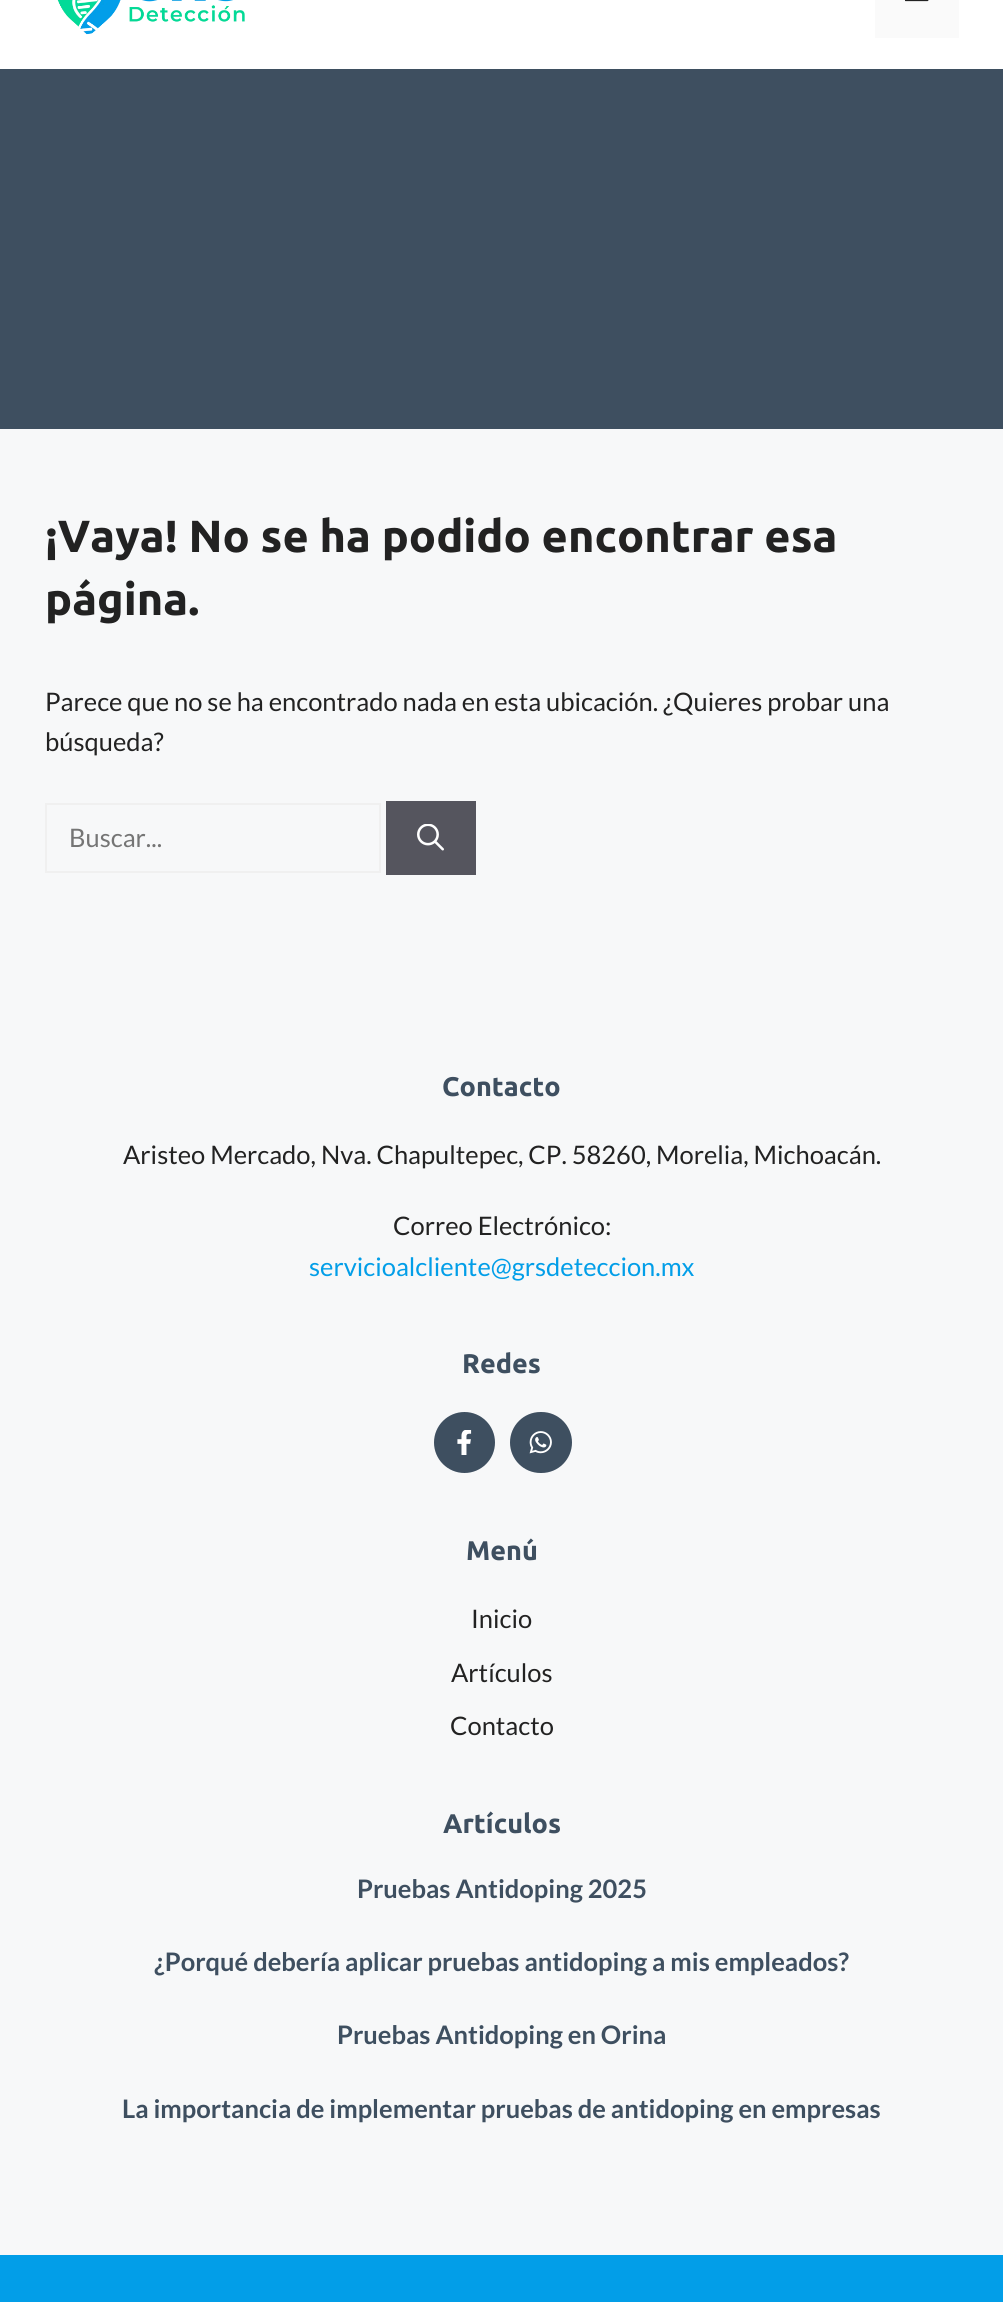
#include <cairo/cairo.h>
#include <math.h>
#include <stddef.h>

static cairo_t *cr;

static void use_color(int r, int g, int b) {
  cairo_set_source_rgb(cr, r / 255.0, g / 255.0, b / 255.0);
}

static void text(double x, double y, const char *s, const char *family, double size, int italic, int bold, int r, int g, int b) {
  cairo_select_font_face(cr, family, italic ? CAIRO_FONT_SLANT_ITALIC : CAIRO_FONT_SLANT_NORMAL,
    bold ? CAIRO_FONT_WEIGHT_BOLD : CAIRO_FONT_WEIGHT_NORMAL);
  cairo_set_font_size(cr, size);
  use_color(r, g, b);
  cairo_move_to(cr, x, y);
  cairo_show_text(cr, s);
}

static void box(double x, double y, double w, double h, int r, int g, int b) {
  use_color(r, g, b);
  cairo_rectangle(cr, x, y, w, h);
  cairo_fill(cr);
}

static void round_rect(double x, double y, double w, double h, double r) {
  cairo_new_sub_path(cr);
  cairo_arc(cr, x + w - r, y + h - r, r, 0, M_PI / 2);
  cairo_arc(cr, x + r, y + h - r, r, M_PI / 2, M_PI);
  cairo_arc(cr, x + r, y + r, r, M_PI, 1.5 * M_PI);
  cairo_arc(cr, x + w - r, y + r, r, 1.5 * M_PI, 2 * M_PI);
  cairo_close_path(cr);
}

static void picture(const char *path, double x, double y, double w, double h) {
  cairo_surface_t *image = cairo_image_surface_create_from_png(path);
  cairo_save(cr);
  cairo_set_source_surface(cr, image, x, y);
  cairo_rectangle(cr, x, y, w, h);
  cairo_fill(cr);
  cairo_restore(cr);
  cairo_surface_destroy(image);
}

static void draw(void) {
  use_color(247, 248, 249);
  cairo_paint(cr);
  box(0, 0, 1003, 69, 255, 255, 255);
  picture("img_01.png", 57, 0, 188, 35);
  box(875, 0, 84, 38, 250, 250, 250);
  picture("img_02.png", 905, 0, 24, 2);
  box(0, 69, 1003, 360, 62, 79, 96);
  cairo_rectangle(cr, 46, 804, 334, 68);
  use_color(240, 240, 240);
  cairo_stroke(cr);
  box(386, 801, 90, 74, 85, 85, 94);
  picture("img_03.png", 417, 824, 27, 27);
  use_color(62, 79, 96);
  cairo_arc(cr, 464.5, 1442.5, 30.5, 0, 2 * M_PI);
  cairo_fill(cr);
  picture("img_04.png", 457, 1430, 15, 25);
  round_rect(510, 1412, 62, 61, 30.5);
  cairo_fill(cr);
  picture("img_05.png", 529, 1431, 23, 23);
  box(0, 2255, 1003, 47, 2, 158, 232);
  text(45, 552, "¡Vaya! No se ha podido encontrar esa", "Ubuntu", 45, 0, 1, 34, 34, 34);
  text(45, 615, "página.", "Ubuntu", 45, 0, 1, 34, 34, 34);
  text(45, 711, "Parece que no se ha encontrado nada en esta ubicación. ¿Quieres probar una", "Lato", 25.5, 0, 0, 34, 34, 34);
  text(45, 751, "búsqueda?", "Lato", 25.5, 0, 0, 34, 34, 34);
  text(69, 847, "Buscar...", "Lato", 25.5, 0, 0, 117, 117, 117);
  text(442, 1096, "Contacto", "Ubuntu", 27, 0, 1, 62, 79, 96);
  text(123, 1164, "Aristeo Mercado, Nva. Chapultepec, CP. 58260, Morelia, Michoacán.", "Lato", 25.5, 0, 0, 34, 34, 34);
  text(393, 1235, "Correo Electrónico:", "Lato", 25.5, 0, 0, 34, 34, 34);
  text(309, 1276, "servicioalcliente@grsdeteccion.mx", "Lato", 25.5, 0, 0, 2, 158, 232);
  text(462, 1373, "Redes", "Ubuntu", 27, 0, 1, 62, 79, 96);
  text(466, 1560, "Menú", "Ubuntu", 27, 0, 1, 62, 79, 96);
  text(471, 1628, "Inicio", "Lato", 25.5, 0, 0, 34, 34, 34);
  text(451, 1682, "Artículos", "Lato", 25.5, 0, 0, 34, 34, 34);
  text(450, 1735, "Contacto", "Lato", 25.5, 0, 0, 34, 34, 34);
  text(443, 1833, "Artículos", "Ubuntu", 27, 0, 1, 62, 79, 96);
  text(357, 1898, "Pruebas Antidoping 2025", "Lato", 25.5, 0, 1, 62, 79, 96);
  text(154, 1971, "¿Porqué debería aplicar pruebas antidoping a mis empleados?", "Lato", 25.5, 0, 1, 62, 79, 96);
  text(337, 2044, "Pruebas Antidoping en Orina", "Lato", 25.5, 0, 1, 62, 79, 96);
  text(122, 2118, "La importancia de implementar pruebas de antidoping en empresas", "Lato", 25.5, 0, 1, 62, 79, 96);
}

int main(void) {
  cairo_surface_t *surface = cairo_image_surface_create(CAIRO_FORMAT_RGB24, 1003, 2302);
  cr = cairo_create(surface);
  cairo_font_options_t *options = cairo_font_options_create();
  cairo_font_options_set_hint_metrics(options, CAIRO_HINT_METRICS_OFF);
  cairo_font_options_set_hint_style(options, CAIRO_HINT_STYLE_NONE);
  cairo_set_font_options(cr, options);
  cairo_set_miter_limit(cr, 4);
  draw();
  cairo_surface_write_to_png(surface, "out.png");
  cairo_font_options_destroy(options);
  cairo_destroy(cr);
  cairo_surface_destroy(surface);
  return 0;
}
